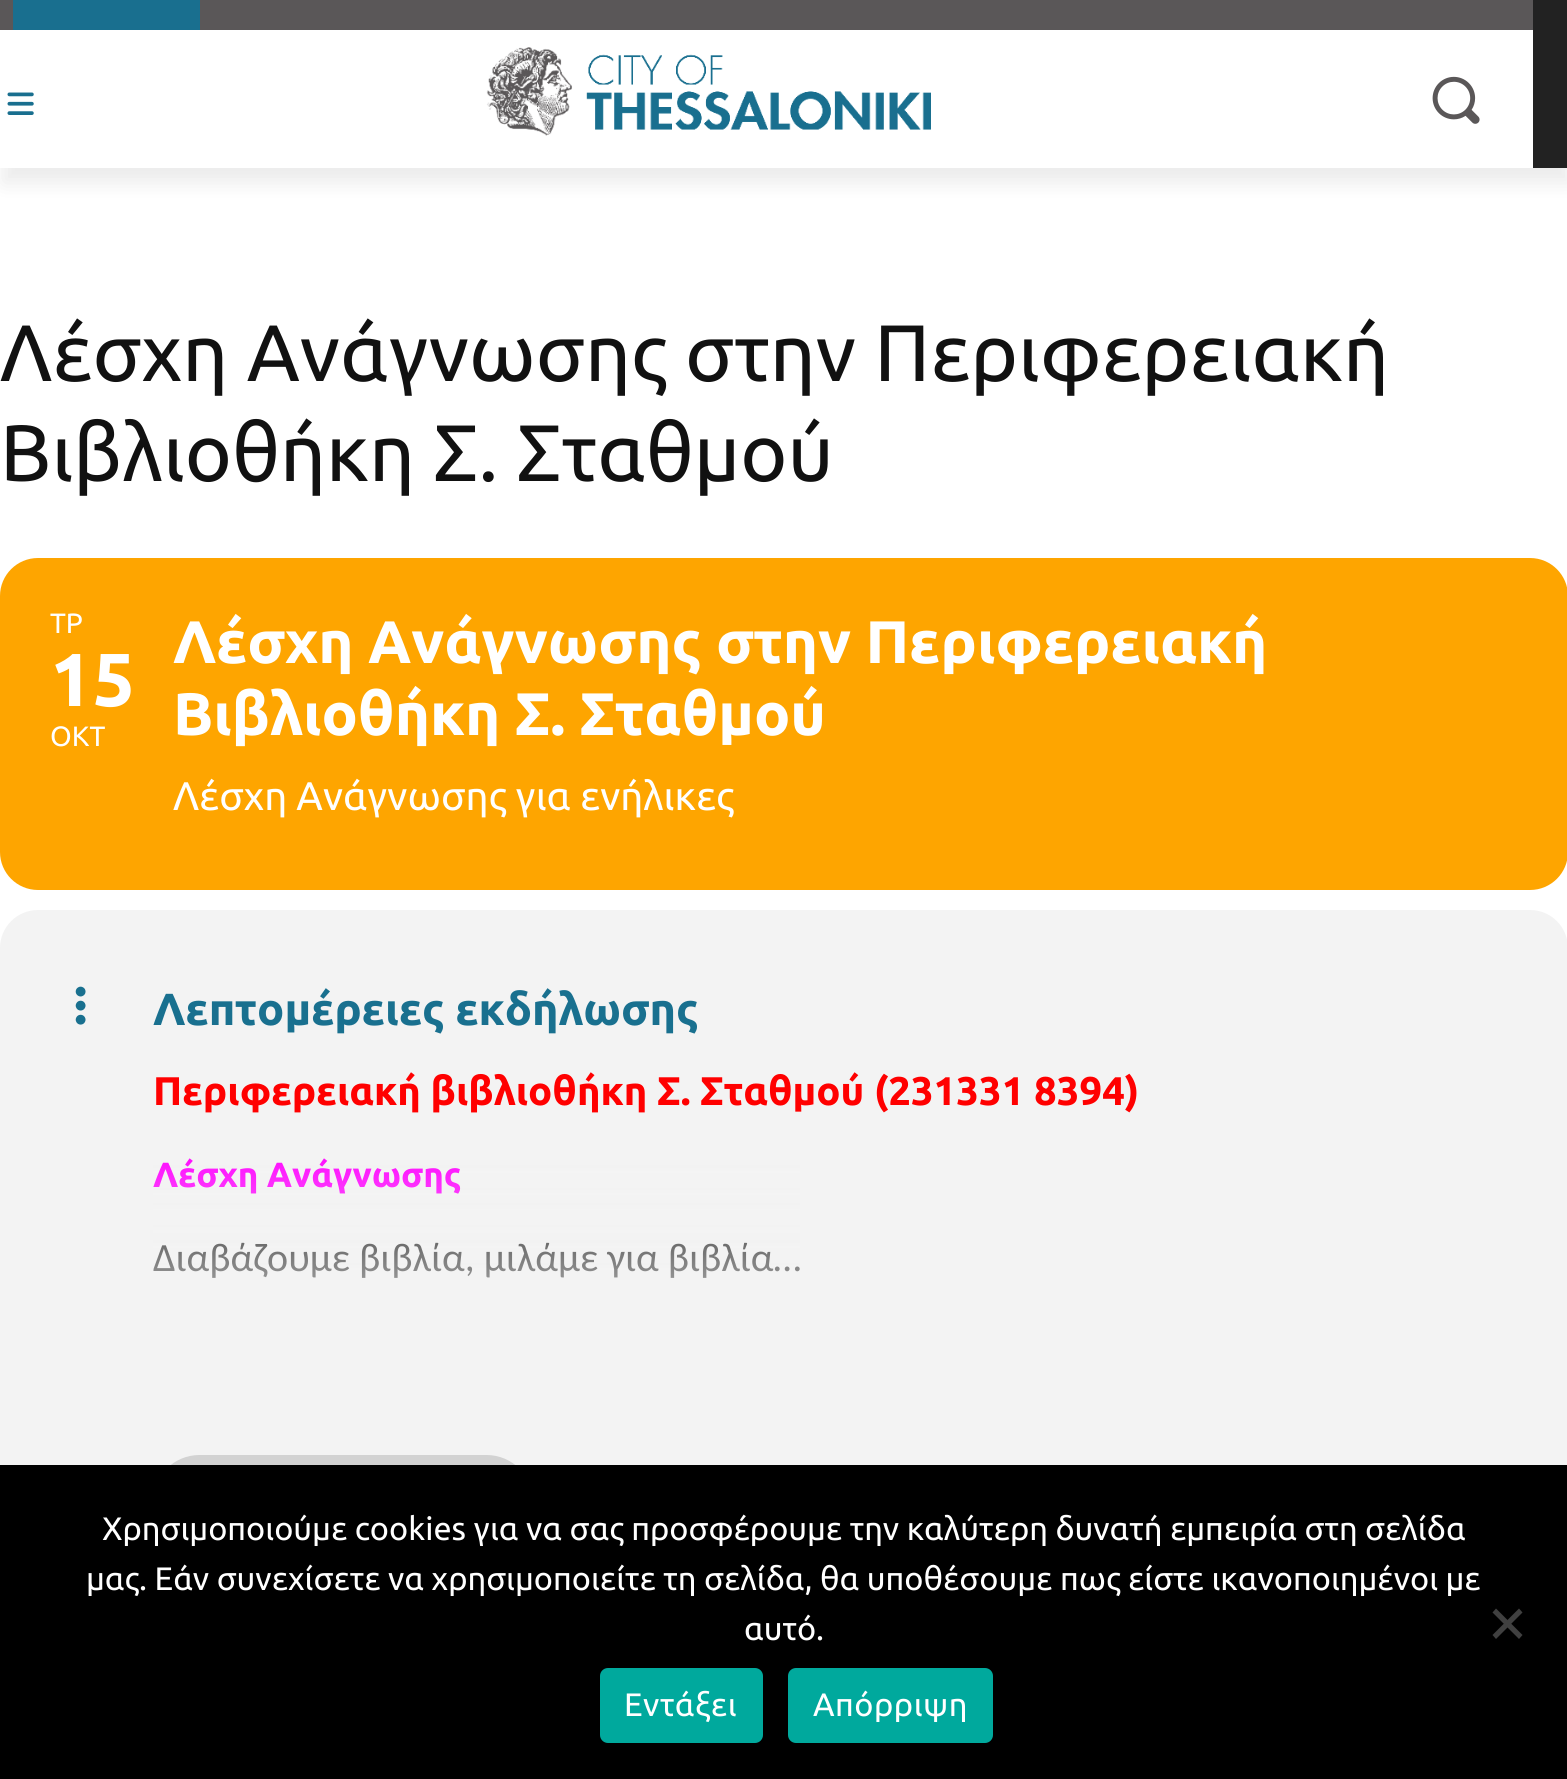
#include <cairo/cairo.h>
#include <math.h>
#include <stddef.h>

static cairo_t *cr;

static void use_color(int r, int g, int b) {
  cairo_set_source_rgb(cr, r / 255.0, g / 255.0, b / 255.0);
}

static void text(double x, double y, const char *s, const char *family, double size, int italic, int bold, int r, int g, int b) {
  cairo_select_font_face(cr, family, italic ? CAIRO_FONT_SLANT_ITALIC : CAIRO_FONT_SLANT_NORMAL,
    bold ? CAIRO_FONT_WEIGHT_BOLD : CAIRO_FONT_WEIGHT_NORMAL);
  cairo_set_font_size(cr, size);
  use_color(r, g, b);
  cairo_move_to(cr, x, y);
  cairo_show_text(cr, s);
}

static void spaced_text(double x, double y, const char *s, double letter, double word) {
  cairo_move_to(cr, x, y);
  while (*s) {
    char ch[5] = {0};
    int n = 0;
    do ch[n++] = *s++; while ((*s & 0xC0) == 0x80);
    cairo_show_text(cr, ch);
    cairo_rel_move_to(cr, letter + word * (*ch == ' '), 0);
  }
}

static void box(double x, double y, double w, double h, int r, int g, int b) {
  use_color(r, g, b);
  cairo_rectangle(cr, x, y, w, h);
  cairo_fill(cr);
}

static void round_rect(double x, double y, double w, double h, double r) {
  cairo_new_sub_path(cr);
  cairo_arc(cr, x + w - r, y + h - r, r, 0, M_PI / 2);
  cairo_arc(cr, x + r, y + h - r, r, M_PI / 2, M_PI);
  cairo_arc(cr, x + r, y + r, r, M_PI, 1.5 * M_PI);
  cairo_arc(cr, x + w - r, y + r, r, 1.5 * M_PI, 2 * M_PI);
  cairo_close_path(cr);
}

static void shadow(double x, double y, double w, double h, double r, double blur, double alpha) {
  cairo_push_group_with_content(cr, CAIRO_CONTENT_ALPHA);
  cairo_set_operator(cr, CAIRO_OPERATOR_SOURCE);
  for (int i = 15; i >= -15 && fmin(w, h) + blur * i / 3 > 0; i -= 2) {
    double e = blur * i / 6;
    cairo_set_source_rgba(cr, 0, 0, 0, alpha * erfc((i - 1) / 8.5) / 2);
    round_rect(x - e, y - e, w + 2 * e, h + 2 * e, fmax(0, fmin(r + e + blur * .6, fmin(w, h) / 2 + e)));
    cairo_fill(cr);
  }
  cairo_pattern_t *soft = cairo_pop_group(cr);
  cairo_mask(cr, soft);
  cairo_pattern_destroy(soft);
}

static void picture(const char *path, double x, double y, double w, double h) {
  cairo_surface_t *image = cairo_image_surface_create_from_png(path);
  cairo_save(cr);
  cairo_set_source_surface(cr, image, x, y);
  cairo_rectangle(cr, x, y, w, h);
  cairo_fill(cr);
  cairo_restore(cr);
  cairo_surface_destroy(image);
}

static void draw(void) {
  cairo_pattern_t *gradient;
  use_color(255, 255, 255);
  cairo_paint(cr);
  use_color(0, 0, 0);
  shadow(3, -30, 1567, 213, 0, 10, 0.08);
  box(0, 0, 1533, 30, 90, 87, 88);
  box(13, 0, 187, 30, 25, 111, 143);
  box(1533, 0, 34, 168, 34, 34, 34);
  box(0, 30, 1533, 138, 255, 255, 255);
  picture("img_01.png", 7, 92, 27, 23);
  picture("img_02.png", 486, 47, 445, 89);
  picture("img_03.png", 1432, 76, 48, 48);
  use_color(254, 165, 0);
  round_rect(0, 558, 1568, 332, 38);
  cairo_fill(cr);
  use_color(243, 243, 243);
  round_rect(0, 910, 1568, 713, 38);
  cairo_fill(cr);
  picture("img_04.png", 75, 986, 11, 39);
  use_color(210, 210, 210);
  round_rect(153, 1455, 380, 93, 46.5);
  cairo_fill(cr);
  box(0, 1465, 1567, 314, 0, 0, 0);
  use_color(64, 64, 64);
  cairo_new_path(cr);
  cairo_move_to(cr, 1519, 1608.5);
  cairo_line_to(cr, 1522.5, 1612.5);
  cairo_line_to(cr, 1496, 1639);
  cairo_line_to(cr, 1492.5, 1635);
  cairo_close_path(cr);
  cairo_fill(cr);
  cairo_new_path(cr);
  cairo_move_to(cr, 1492.5, 1612.5);
  cairo_line_to(cr, 1496, 1608.5);
  cairo_line_to(cr, 1522.5, 1635);
  cairo_line_to(cr, 1519, 1639);
  cairo_close_path(cr);
  cairo_fill(cr);
  use_color(0, 169, 157);
  round_rect(600, 1668, 163, 75, 8);
  cairo_fill(cr);
  round_rect(788, 1668, 205, 75, 8);
  cairo_fill(cr);
  text(0, 381, "Λέσχη Ανάγνωσης στην Περιφερειακή", "Ubuntu", 80, 0, 0, 17, 17, 17);
  text(0, 481, "Βιβλιοθήκη Σ. Σταθμού", "Ubuntu", 80, 0, 0, 17, 17, 17);
  text(50, 633, "ΤΡ", "Ubuntu", 28, 0, 0, 255, 255, 255);
  text(50, 706, "15", "Ubuntu", 75, 0, 1, 255, 255, 255);
  text(50, 746, "ΟΚΤ", "Ubuntu", 28, 0, 0, 255, 255, 255);
  text(173, 663, "Λέσχη Ανάγνωσης στην Περιφερειακή", "Ubuntu", 60, 0, 1, 255, 255, 255);
  text(173, 735, "Βιβλιοθήκη Σ. Σταθμού", "Ubuntu", 60, 0, 1, 255, 255, 255);
  text(173, 810, "Λέσχη Ανάγνωσης για ενήλικες", "Ubuntu", 40, 0, 0, 255, 255, 255);
  text(153, 1025, "Λεπτομέρειες εκδήλωσης", "Ubuntu", 45, 0, 1, 25, 112, 143);
  text(153, 1105, "Περιφερειακή βιβλιοθήκη Σ. Σταθμού (231331 8394)", "Ubuntu", 40, 0, 1, 255, 0, 0);
  text(153, 1187, "Λέσχη Ανάγνωσης", "Ubuntu", 35, 0, 1, 255, 0, 255);
  text(153, 1271, "Διαβάζουμε βιβλία, μιλάμε για βιβλία…", "Carlito", 40, 0, 0, 0, 0, 0);
  gradient = cairo_pattern_create_linear(823, 1443, 823, 1068);
  cairo_pattern_add_color_stop_rgba(gradient, 0.2, 0.953, 0.953, 0.953, 1);
  cairo_pattern_add_color_stop_rgba(gradient, 0.8, 0.953, 0.953, 0.953, 0);
  cairo_set_source(cr, gradient);
  cairo_pattern_destroy(gradient);
  cairo_rectangle(cr, 153, 1158, 647, 120);
  cairo_fill(cr);
  text(102, 1540, "Χρησιμοποιούμε cookies για να σας προσφέρουμε την καλύτερη δυνατή εμπειρία στη σελίδα", "Ubuntu", 32.5, 0, 0, 255, 255, 255);
  text(86, 1590, "μας. Εάν συνεχίσετε να χρησιμοποιείτε τη σελίδα, θα υποθέσουμε πως είστε ικανοποιημένοι με", "Ubuntu", 32.5, 0, 0, 255, 255, 255);
  text(744, 1640, "αυτό.", "Ubuntu", 32.5, 0, 0, 255, 255, 255);
  spaced_text(624, 1716, "Εντάξει", 0.5, 0);
  spaced_text(813, 1716, "Απόρριψη", 0.5, 0);
}

int main(void) {
  cairo_surface_t *surface = cairo_image_surface_create(CAIRO_FORMAT_RGB24, 1567, 1779);
  cr = cairo_create(surface);
  cairo_font_options_t *options = cairo_font_options_create();
  cairo_font_options_set_hint_metrics(options, CAIRO_HINT_METRICS_OFF);
  cairo_font_options_set_hint_style(options, CAIRO_HINT_STYLE_NONE);
  cairo_set_font_options(cr, options);
  cairo_set_miter_limit(cr, 4);
  draw();
  cairo_surface_write_to_png(surface, "out.png");
  cairo_font_options_destroy(options);
  cairo_destroy(cr);
  cairo_surface_destroy(surface);
  return 0;
}
